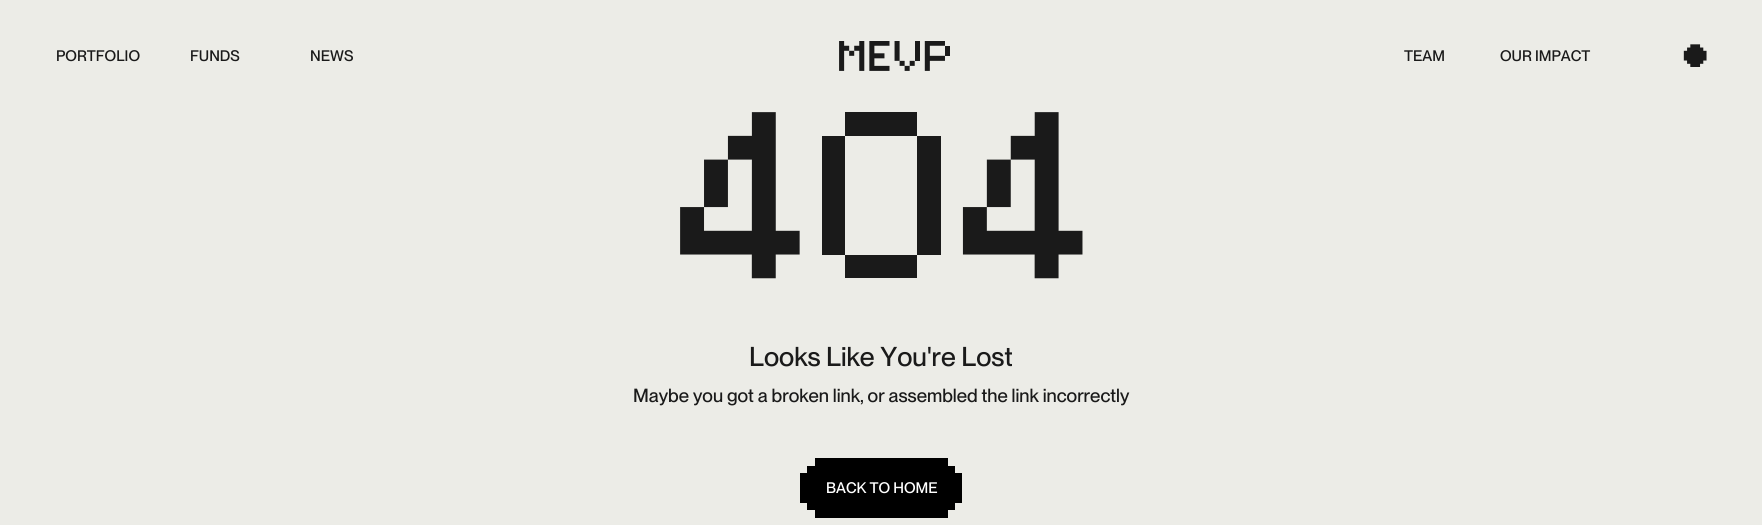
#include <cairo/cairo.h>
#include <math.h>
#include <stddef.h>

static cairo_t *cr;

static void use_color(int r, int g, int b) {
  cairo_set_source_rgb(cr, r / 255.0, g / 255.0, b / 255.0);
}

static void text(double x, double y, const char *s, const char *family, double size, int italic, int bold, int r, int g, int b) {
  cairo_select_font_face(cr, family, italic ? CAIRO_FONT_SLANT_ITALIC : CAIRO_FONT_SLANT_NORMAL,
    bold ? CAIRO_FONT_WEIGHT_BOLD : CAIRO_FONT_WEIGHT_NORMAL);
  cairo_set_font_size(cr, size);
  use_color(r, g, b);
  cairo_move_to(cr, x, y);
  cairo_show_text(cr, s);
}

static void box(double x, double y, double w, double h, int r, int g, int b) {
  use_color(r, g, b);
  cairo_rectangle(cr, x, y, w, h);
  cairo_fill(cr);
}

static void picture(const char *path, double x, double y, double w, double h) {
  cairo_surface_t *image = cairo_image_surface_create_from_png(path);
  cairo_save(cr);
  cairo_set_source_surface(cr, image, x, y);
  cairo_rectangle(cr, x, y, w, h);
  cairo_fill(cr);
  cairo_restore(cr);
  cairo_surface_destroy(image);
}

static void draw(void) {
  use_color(236, 236, 231);
  cairo_paint(cr);
  picture("img_01.png", 839, 41, 111, 30);
  picture("img_02.png", 1683, 44, 24, 23);
  picture("img_03.png", 680, 112, 403, 167);
  cairo_save(cr);
  cairo_rectangle(cr, 800, 458, 16, 60);
  cairo_clip(cr);
  use_color(0, 0, 0);
  cairo_new_path(cr);
  cairo_move_to(cr, 978, 503);
  cairo_line_to(cr, 971, 503);
  cairo_line_to(cr, 971, 510);
  cairo_line_to(cr, 963, 510);
  cairo_line_to(cr, 963, 518);
  cairo_line_to(cr, 815, 518);
  cairo_line_to(cr, 815, 510);
  cairo_line_to(cr, 807, 510);
  cairo_line_to(cr, 807, 503);
  cairo_line_to(cr, 800, 503);
  cairo_line_to(cr, 800, 473);
  cairo_line_to(cr, 807, 473);
  cairo_line_to(cr, 807, 466);
  cairo_line_to(cr, 815, 466);
  cairo_line_to(cr, 815, 458);
  cairo_line_to(cr, 963, 458);
  cairo_line_to(cr, 963, 466);
  cairo_line_to(cr, 971, 466);
  cairo_line_to(cr, 971, 473);
  cairo_line_to(cr, 978, 473);
  cairo_close_path(cr);
  cairo_fill(cr);
  cairo_restore(cr);
  box(816, 458, 130, 60, 0, 0, 0);
  cairo_save(cr);
  cairo_rectangle(cr, 946, 458, 16, 60);
  cairo_clip(cr);
  cairo_new_path(cr);
  cairo_move_to(cr, 784, 473);
  cairo_line_to(cr, 792, 473);
  cairo_line_to(cr, 792, 466);
  cairo_line_to(cr, 799, 466);
  cairo_line_to(cr, 799, 458);
  cairo_line_to(cr, 948, 458);
  cairo_line_to(cr, 948, 466);
  cairo_line_to(cr, 955, 466);
  cairo_line_to(cr, 955, 473);
  cairo_line_to(cr, 962, 473);
  cairo_line_to(cr, 962, 503);
  cairo_line_to(cr, 955, 503);
  cairo_line_to(cr, 955, 510);
  cairo_line_to(cr, 948, 510);
  cairo_line_to(cr, 948, 518);
  cairo_line_to(cr, 799, 518);
  cairo_line_to(cr, 799, 510);
  cairo_line_to(cr, 792, 510);
  cairo_line_to(cr, 792, 503);
  cairo_line_to(cr, 784, 503);
  cairo_close_path(cr);
  cairo_fill(cr);
  cairo_restore(cr);
  text(56, 61, "PORTFOLIO", "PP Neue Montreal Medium", 15, 0, 0, 26, 26, 26);
  text(190, 61, "FUNDS", "PP Neue Montreal Medium", 15, 0, 0, 26, 26, 26);
  text(310, 61, "NEWS", "PP Neue Montreal Medium", 15, 0, 0, 26, 26, 26);
  text(1404, 61, "TEAM", "PP Neue Montreal Medium", 15, 0, 0, 26, 26, 26);
  text(1500, 61, "OUR IMPACT", "PP Neue Montreal Medium", 15, 0, 0, 26, 26, 26);
  text(749, 366, "Looks Like You're Lost", "PP Neue Montreal Medium", 26.75, 0, 0, 26, 26, 26);
  text(633, 402, "Maybe you got a broken link, or assembled the link incorrectly", "PP Neue Montreal Medium", 18.65, 0, 0, 26, 26, 26);
  text(826, 493, "BACK TO HOME", "PP Neue Montreal Medium", 15, 0, 0, 255, 255, 255);
}

int main(void) {
  cairo_surface_t *surface = cairo_image_surface_create(CAIRO_FORMAT_RGB24, 1762, 525);
  cr = cairo_create(surface);
  cairo_font_options_t *options = cairo_font_options_create();
  cairo_font_options_set_hint_metrics(options, CAIRO_HINT_METRICS_OFF);
  cairo_font_options_set_hint_style(options, CAIRO_HINT_STYLE_NONE);
  cairo_set_font_options(cr, options);
  cairo_set_miter_limit(cr, 4);
  draw();
  cairo_surface_write_to_png(surface, "out.png");
  cairo_font_options_destroy(options);
  cairo_destroy(cr);
  cairo_surface_destroy(surface);
  return 0;
}
